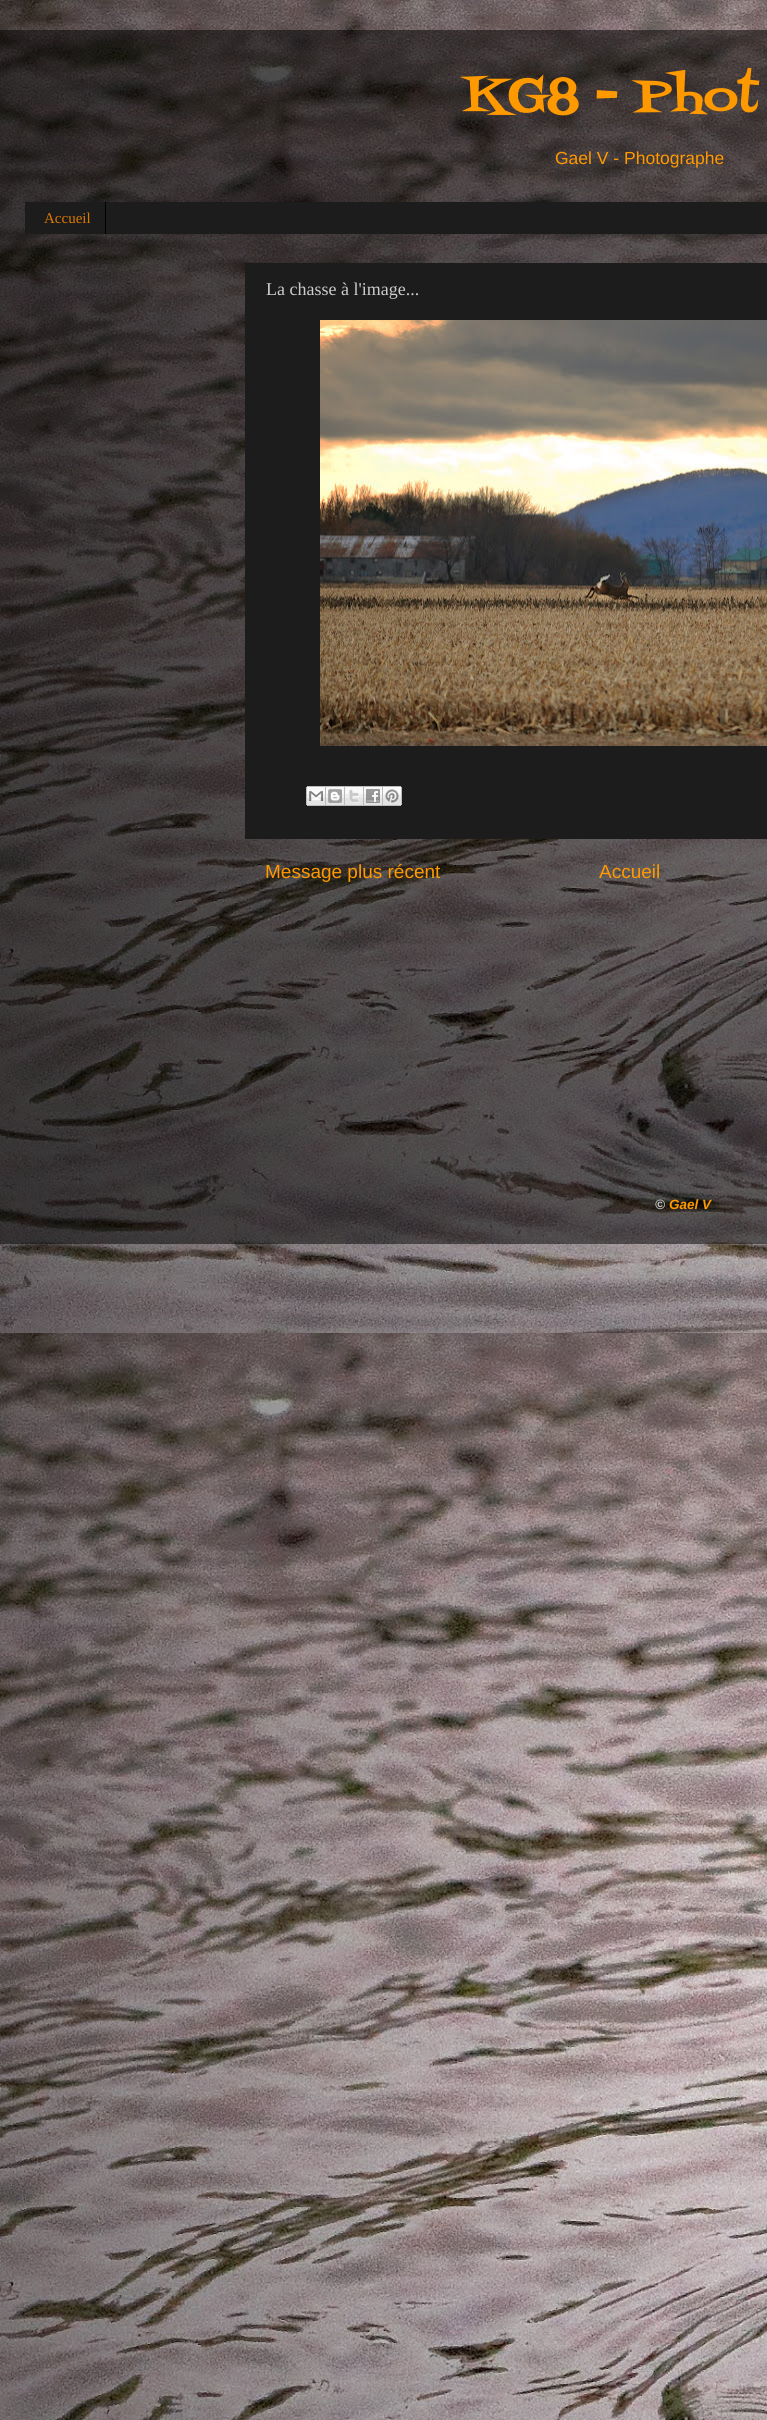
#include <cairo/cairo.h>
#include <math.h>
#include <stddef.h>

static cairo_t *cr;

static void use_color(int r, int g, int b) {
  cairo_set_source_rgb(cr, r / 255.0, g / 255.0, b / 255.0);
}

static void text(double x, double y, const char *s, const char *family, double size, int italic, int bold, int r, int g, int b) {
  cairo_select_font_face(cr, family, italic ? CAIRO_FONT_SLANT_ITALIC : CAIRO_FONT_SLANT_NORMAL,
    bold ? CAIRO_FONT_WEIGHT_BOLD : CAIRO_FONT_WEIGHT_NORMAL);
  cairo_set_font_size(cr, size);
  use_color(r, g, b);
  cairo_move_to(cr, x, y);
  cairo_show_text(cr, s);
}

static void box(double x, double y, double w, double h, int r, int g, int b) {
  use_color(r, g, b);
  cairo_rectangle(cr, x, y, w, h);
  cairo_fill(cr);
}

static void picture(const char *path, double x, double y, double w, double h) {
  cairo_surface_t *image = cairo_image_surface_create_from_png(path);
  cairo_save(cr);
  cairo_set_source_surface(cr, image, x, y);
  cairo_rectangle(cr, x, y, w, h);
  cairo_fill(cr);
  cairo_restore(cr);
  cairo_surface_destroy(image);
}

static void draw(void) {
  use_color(255, 255, 255);
  cairo_paint(cr);
  picture("img_01.png", 0, 0, 767, 2420);
  cairo_set_source_rgba(cr, 0, 0, 0, 0.5);
  cairo_rectangle(cr, 0, 30, 767, 1214);
  cairo_fill(cr);
  box(25, 202, 742, 32, 28, 28, 28);
  box(105, 202, 1, 32, 0, 0, 0);
  box(245, 263, 522, 576, 28, 28, 28);
  picture("img_02.png", 320, 320, 447, 426);
  picture("img_03.png", 306, 786, 20, 20);
  picture("img_04.png", 326, 786, 19, 20);
  picture("img_05.png", 345, 786, 19, 20);
  picture("img_06.png", 364, 786, 19, 20);
  picture("img_07.png", 383, 786, 19, 20);
  text(463, 111, "KG8 - Phot", "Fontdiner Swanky", 48, 0, 0, 255, 153, 0);
  text(555, 164, "Gael V - Photographe", "Liberation Sans", 17.5, 0, 0, 255, 153, 0);
  text(44, 223, "Accueil", "Liberation Serif", 15, 0, 0, 221, 119, 0);
  text(266, 295, "La chasse à l'image...", "Liberation Serif", 18, 0, 0, 204, 204, 204);
  text(265, 878, "Message plus récent", "Liberation Sans", 19, 0, 0, 255, 153, 0);
  text(599, 878, "Accueil", "Liberation Sans", 19, 0, 0, 255, 153, 0);
  text(655, 1209, "©", "Liberation Sans", 13.5, 1, 1, 204, 204, 204);
  text(669, 1209, "Gael V", "Liberation Sans", 13.5, 1, 1, 255, 153, 0);
}

int main(void) {
  cairo_surface_t *surface = cairo_image_surface_create(CAIRO_FORMAT_RGB24, 767, 2420);
  cr = cairo_create(surface);
  cairo_font_options_t *options = cairo_font_options_create();
  cairo_font_options_set_hint_metrics(options, CAIRO_HINT_METRICS_OFF);
  cairo_font_options_set_hint_style(options, CAIRO_HINT_STYLE_NONE);
  cairo_set_font_options(cr, options);
  cairo_set_miter_limit(cr, 4);
  draw();
  cairo_surface_write_to_png(surface, "out.png");
  cairo_font_options_destroy(options);
  cairo_destroy(cr);
  cairo_surface_destroy(surface);
  return 0;
}
